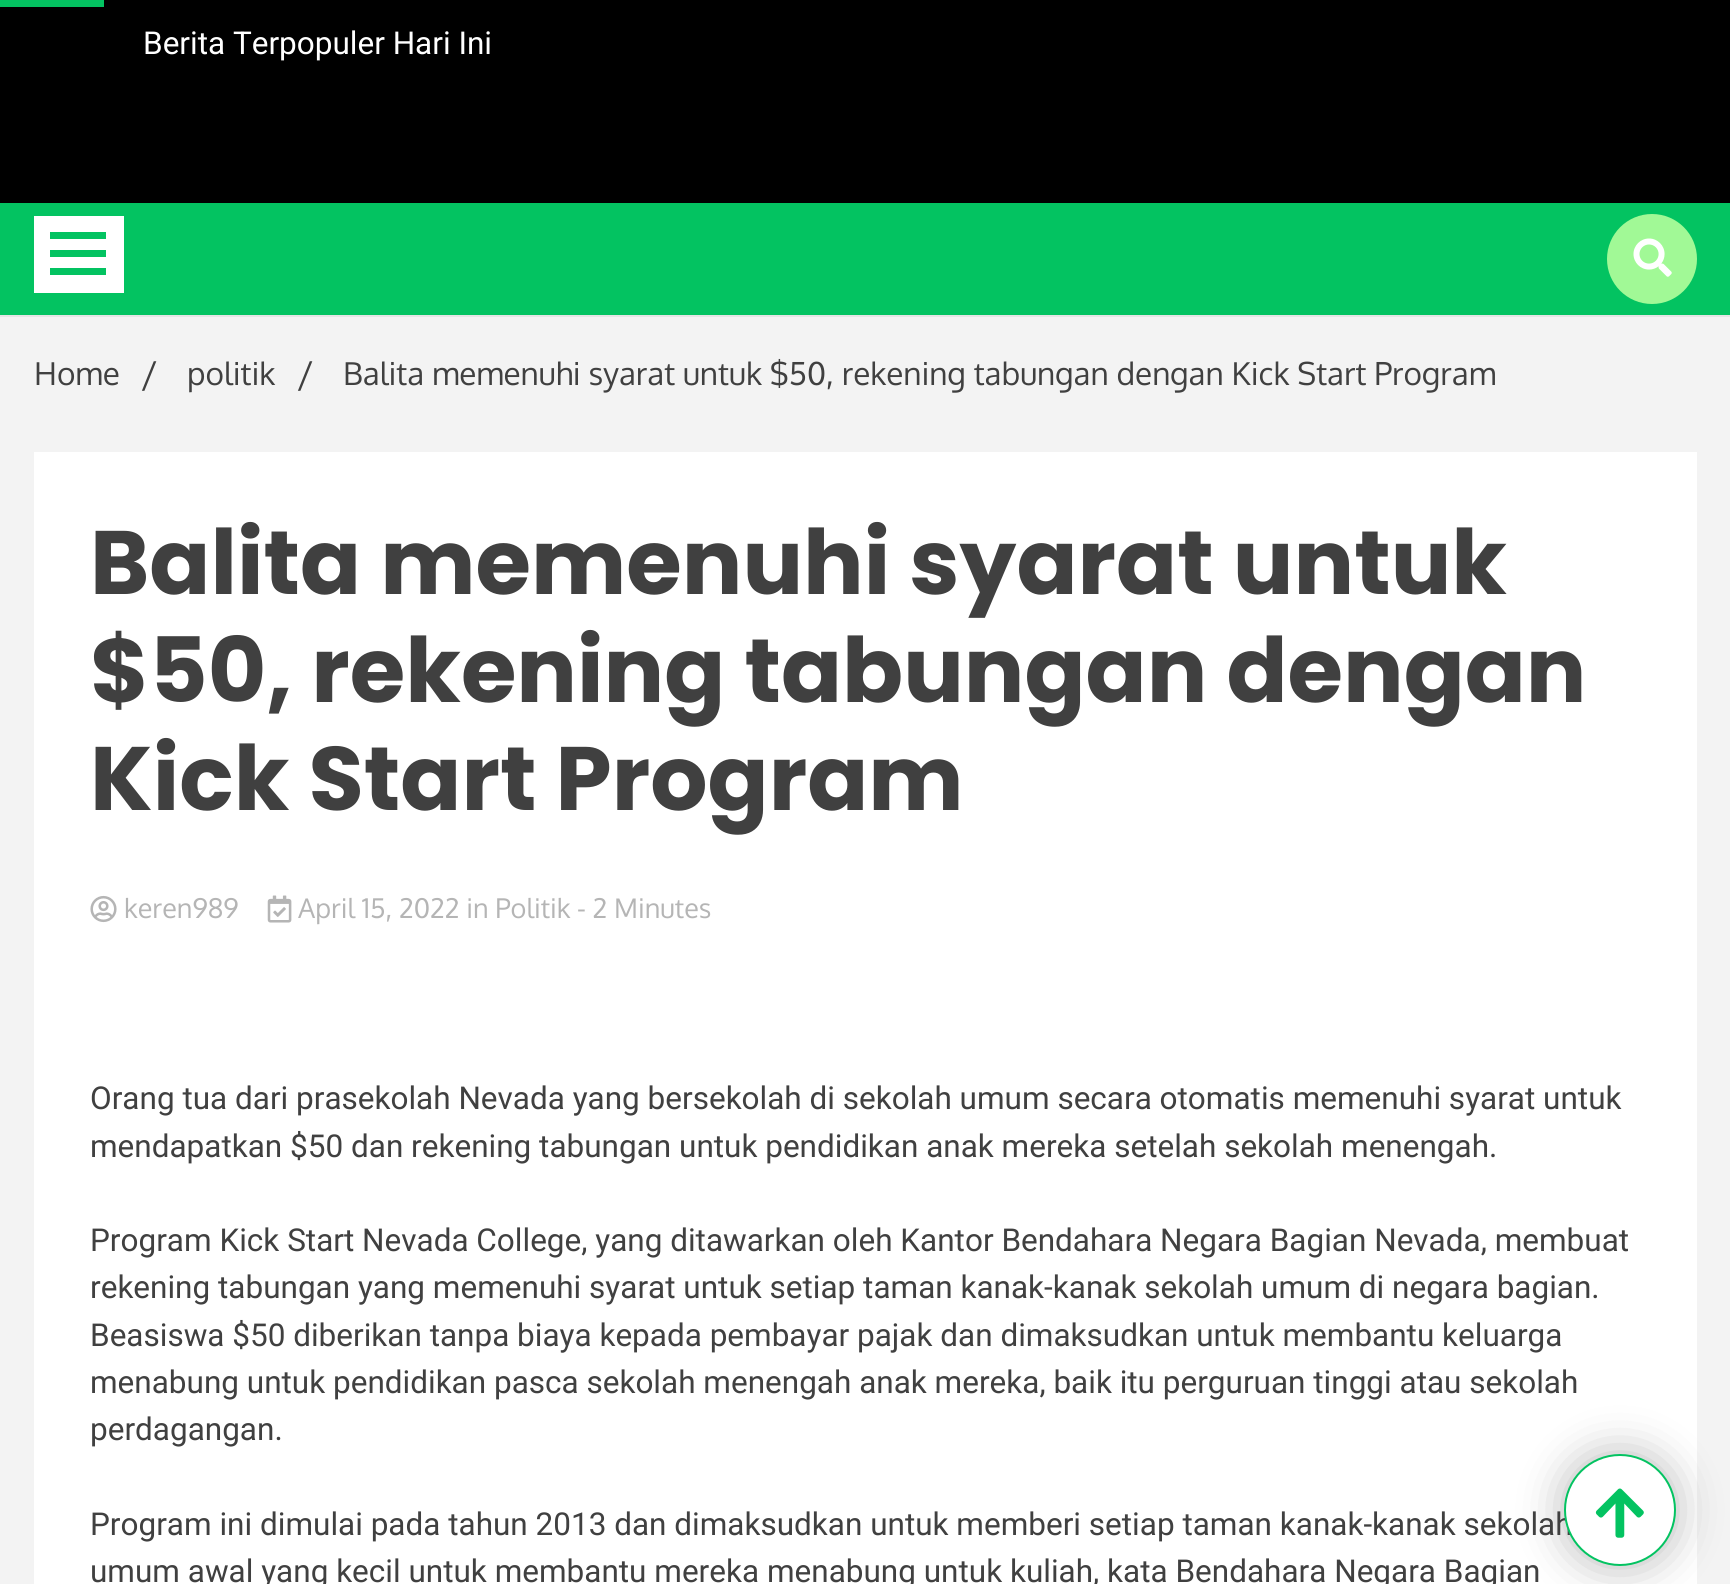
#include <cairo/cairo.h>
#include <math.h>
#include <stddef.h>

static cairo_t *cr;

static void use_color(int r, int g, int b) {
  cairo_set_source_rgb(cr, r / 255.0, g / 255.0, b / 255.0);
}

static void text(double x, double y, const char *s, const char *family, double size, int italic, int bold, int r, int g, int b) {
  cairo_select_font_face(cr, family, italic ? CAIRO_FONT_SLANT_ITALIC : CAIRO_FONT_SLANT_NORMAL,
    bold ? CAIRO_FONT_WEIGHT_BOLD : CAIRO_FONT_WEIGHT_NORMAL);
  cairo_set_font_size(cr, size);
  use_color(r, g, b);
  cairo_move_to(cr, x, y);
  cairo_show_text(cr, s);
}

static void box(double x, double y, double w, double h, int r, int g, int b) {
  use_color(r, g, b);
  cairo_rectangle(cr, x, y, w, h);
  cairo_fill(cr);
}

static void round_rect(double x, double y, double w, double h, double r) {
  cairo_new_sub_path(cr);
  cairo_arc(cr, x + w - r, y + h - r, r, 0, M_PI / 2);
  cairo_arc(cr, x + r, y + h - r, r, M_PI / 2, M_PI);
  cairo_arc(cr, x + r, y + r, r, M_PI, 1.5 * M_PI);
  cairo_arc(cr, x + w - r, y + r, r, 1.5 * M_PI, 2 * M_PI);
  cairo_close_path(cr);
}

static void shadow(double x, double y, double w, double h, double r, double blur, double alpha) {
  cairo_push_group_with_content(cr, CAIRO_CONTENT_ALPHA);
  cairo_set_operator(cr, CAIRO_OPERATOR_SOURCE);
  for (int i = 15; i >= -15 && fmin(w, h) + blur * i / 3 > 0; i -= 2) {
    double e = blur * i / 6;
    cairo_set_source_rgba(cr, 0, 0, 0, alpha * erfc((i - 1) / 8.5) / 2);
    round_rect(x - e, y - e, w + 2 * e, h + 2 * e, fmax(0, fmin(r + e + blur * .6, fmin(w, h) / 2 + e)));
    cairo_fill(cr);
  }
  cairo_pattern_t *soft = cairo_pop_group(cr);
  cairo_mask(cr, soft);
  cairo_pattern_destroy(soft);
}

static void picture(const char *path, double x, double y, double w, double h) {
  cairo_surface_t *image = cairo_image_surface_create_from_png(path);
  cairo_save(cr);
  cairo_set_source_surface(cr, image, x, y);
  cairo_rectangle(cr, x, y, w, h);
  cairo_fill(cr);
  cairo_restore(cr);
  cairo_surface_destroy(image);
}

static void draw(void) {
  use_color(243, 243, 243);
  cairo_paint(cr);
  box(0, 0, 1730, 203, 0, 0, 0);
  box(0, 0, 104, 7, 3, 195, 97);
  cairo_rectangle(cr, -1, 201, 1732, 115);
  cairo_set_source_rgba(cr, 0, 0, 0, 0.06);
  cairo_stroke(cr);
  box(0, 203, 1730, 112, 3, 195, 97);
  box(34, 216, 90, 77, 255, 255, 255);
  box(50, 232, 56, 7, 3, 195, 97);
  box(50, 250, 56, 7, 3, 195, 97);
  box(50, 268, 56, 7, 3, 195, 97);
  use_color(161, 249, 150);
  cairo_arc(cr, 1652, 259, 45, 0, 2 * M_PI);
  cairo_fill(cr);
  picture("img_01.png", 1633, 238, 39, 39);
  box(34, 452, 1663, 1132, 255, 255, 255);
  picture("img_02.png", 90, 895, 27, 28);
  picture("img_03.png", 267, 895, 25, 28);
  use_color(0, 0, 0);
  shadow(1564, 1454, 112, 112, 56, 22.5, 0.28);
  text(143, 54, "Berita Terpopuler Hari Ini", "Roboto", 31.5, 0, 0, 255, 255, 255);
  text(34, 385, "Home", "Oxygen", 31.5, 0, 0, 64, 64, 64);
  text(141, 387, "/", "Oxygen", 36, 0, 0, 64, 64, 64);
  text(187, 385, "politik", "Oxygen", 31.5, 0, 0, 64, 64, 64);
  text(297, 387, "/", "Oxygen", 36, 0, 0, 64, 64, 64);
  text(343, 385, "Balita memenuhi syarat untuk $50, rekening tabungan dengan Kick Start Program", "Oxygen", 31.5, 0, 0, 64, 64, 64);
  text(90, 594, "Balita memenuhi syarat untuk", "Poppins", 90, 0, 1, 64, 64, 64);
  text(90, 702, "$50, rekening tabungan dengan", "Poppins", 90, 0, 1, 64, 64, 64);
  text(90, 810, "Kick Start Program", "Poppins", 90, 0, 1, 64, 64, 64);
  text(124, 918, "keren989", "Oxygen", 27, 0, 0, 181, 181, 181);
  text(298, 918, "April 15, 2022 in Politik", "Oxygen", 27, 0, 0, 181, 181, 181);
  text(577, 918, "- 2 Minutes", "Oxygen", 27, 0, 0, 181, 181, 181);
  text(90, 1109, "Orang tua dari prasekolah Nevada yang bersekolah di sekolah umum secara otomatis memenuhi syarat untuk", "Roboto", 31.5, 0, 0, 64, 64, 64);
  text(90, 1157, "mendapatkan $50 dan rekening tabungan untuk pendidikan anak mereka setelah sekolah menengah.", "Roboto", 31.5, 0, 0, 64, 64, 64);
  text(90, 1251, "Program Kick Start Nevada College, yang ditawarkan oleh Kantor Bendahara Negara Bagian Nevada, membuat", "Roboto", 31.5, 0, 0, 64, 64, 64);
  text(90, 1298, "rekening tabungan yang memenuhi syarat untuk setiap taman kanak-kanak sekolah umum di negara bagian.", "Roboto", 31.5, 0, 0, 64, 64, 64);
  text(90, 1346, "Beasiswa $50 diberikan tanpa biaya kepada pembayar pajak dan dimaksudkan untuk membantu keluarga", "Roboto", 31.5, 0, 0, 64, 64, 64);
  text(90, 1393, "menabung untuk pendidikan pasca sekolah menengah anak mereka, baik itu perguruan tinggi atau sekolah", "Roboto", 31.5, 0, 0, 64, 64, 64);
  text(90, 1440, "perdagangan.", "Roboto", 31.5, 0, 0, 64, 64, 64);
  text(90, 1535, "Program ini dimulai pada tahun 2013 dan dimaksudkan untuk memberi setiap taman kanak-kanak sekolah", "Roboto", 31.5, 0, 0, 64, 64, 64);
  text(90, 1582, "umum awal yang kecil untuk membantu mereka menabung untuk kuliah, kata Bendahara Negara Bagian", "Roboto", 31.5, 0, 0, 64, 64, 64);
  use_color(255, 255, 255);
  cairo_new_path(cr);
  cairo_arc(cr, 1620, 1510, 55, 0, 2 * M_PI);
  cairo_fill_preserve(cr);
  use_color(3, 195, 97);
  cairo_stroke(cr);
  picture("img_04.png", 1595, 1488, 49, 50);
}

int main(void) {
  cairo_surface_t *surface = cairo_image_surface_create(CAIRO_FORMAT_RGB24, 1730, 1584);
  cr = cairo_create(surface);
  cairo_font_options_t *options = cairo_font_options_create();
  cairo_font_options_set_hint_metrics(options, CAIRO_HINT_METRICS_OFF);
  cairo_font_options_set_hint_style(options, CAIRO_HINT_STYLE_NONE);
  cairo_set_font_options(cr, options);
  cairo_set_miter_limit(cr, 4);
  draw();
  cairo_surface_write_to_png(surface, "out.png");
  cairo_font_options_destroy(options);
  cairo_destroy(cr);
  cairo_surface_destroy(surface);
  return 0;
}
